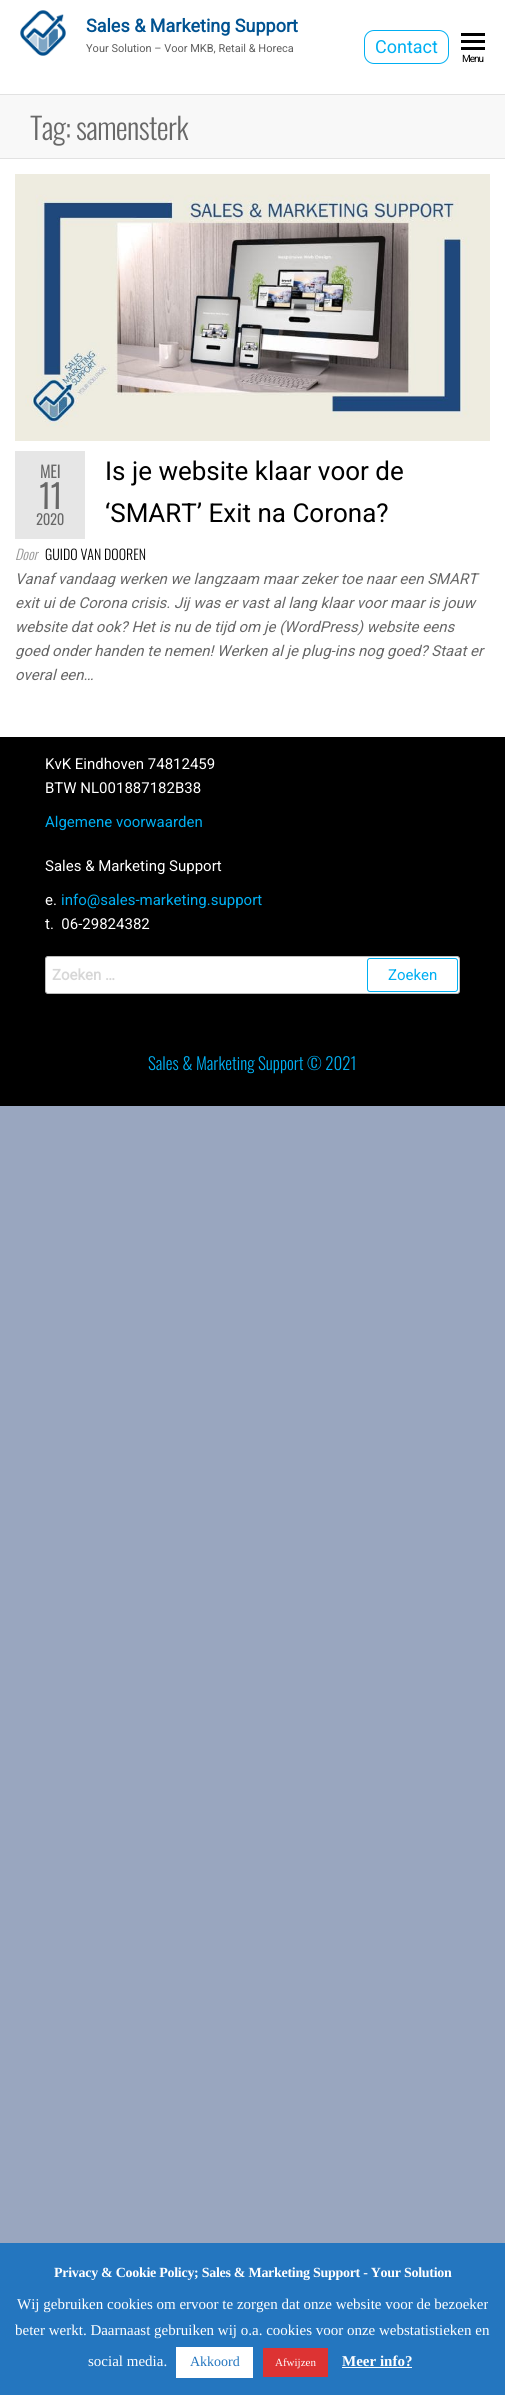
#include <cairo/cairo.h>
#include <math.h>
#include <stddef.h>

static cairo_t *cr;

static void use_color(int r, int g, int b) {
  cairo_set_source_rgb(cr, r / 255.0, g / 255.0, b / 255.0);
}

static void text(double x, double y, const char *s, const char *family, double size, int italic, int bold, int r, int g, int b) {
  cairo_select_font_face(cr, family, italic ? CAIRO_FONT_SLANT_ITALIC : CAIRO_FONT_SLANT_NORMAL,
    bold ? CAIRO_FONT_WEIGHT_BOLD : CAIRO_FONT_WEIGHT_NORMAL);
  cairo_set_font_size(cr, size);
  use_color(r, g, b);
  cairo_move_to(cr, x, y);
  cairo_show_text(cr, s);
}

static void spaced_text(double x, double y, const char *s, double letter, double word) {
  cairo_move_to(cr, x, y);
  while (*s) {
    char ch[5] = {0};
    int n = 0;
    do ch[n++] = *s++; while ((*s & 0xC0) == 0x80);
    cairo_show_text(cr, ch);
    cairo_rel_move_to(cr, letter + word * (*ch == ' '), 0);
  }
}

static void box(double x, double y, double w, double h, int r, int g, int b) {
  use_color(r, g, b);
  cairo_rectangle(cr, x, y, w, h);
  cairo_fill(cr);
}

static void round_rect(double x, double y, double w, double h, double r) {
  cairo_new_sub_path(cr);
  cairo_arc(cr, x + w - r, y + h - r, r, 0, M_PI / 2);
  cairo_arc(cr, x + r, y + h - r, r, M_PI / 2, M_PI);
  cairo_arc(cr, x + r, y + r, r, M_PI, 1.5 * M_PI);
  cairo_arc(cr, x + w - r, y + r, r, 1.5 * M_PI, 2 * M_PI);
  cairo_close_path(cr);
}

static void picture(const char *path, double x, double y, double w, double h) {
  cairo_surface_t *image = cairo_image_surface_create_from_png(path);
  cairo_save(cr);
  cairo_set_source_surface(cr, image, x, y);
  cairo_rectangle(cr, x, y, w, h);
  cairo_fill(cr);
  cairo_restore(cr);
  cairo_surface_destroy(image);
}

static void draw(void) {
  use_color(153, 166, 191);
  cairo_paint(cr);
  box(0, 0, 505, 94, 255, 255, 255);
  box(0, 94, 505, 1, 226, 226, 226);
  picture("img_01.png", 20, 10, 46, 46);
  round_rect(364.5, 30.5, 84, 33, 9.5);
  use_color(0, 175, 242);
  cairo_set_line_width(cr, 1);
  cairo_stroke(cr);
  box(461, 33, 24, 3, 0, 0, 0);
  box(461, 40, 24, 3, 0, 0, 0);
  box(461, 47, 24, 3, 0, 0, 0);
  box(0, 95, 505, 63, 248, 248, 248);
  box(0, 158, 505, 1, 226, 226, 226);
  box(0, 159, 505, 578, 255, 255, 255);
  picture("img_02.png", 15, 174, 475, 267);
  box(15, 451, 70, 88, 230, 230, 230);
  box(0, 737, 505, 369, 0, 0, 0);
  use_color(255, 255, 255);
  round_rect(45.5, 956.5, 414, 37, 2.5);
  cairo_fill_preserve(cr);
  use_color(187, 187, 187);
  cairo_stroke(cr);
  round_rect(367.5, 958.5, 90, 33, 2.5);
  use_color(0, 175, 242);
  cairo_stroke(cr);
  box(0, 2243, 505, 152, 36, 118, 191);
  box(176, 2347, 77, 31, 255, 255, 255);
  box(263, 2348, 65, 29, 221, 51, 51);
  box(342, 2367, 70, 1, 255, 255, 255);
  text(86, 32, "Sales & Marketing Support", "Roboto", 18, 0, 1, 0, 82, 145);
  text(86, 52, "Your Solution – Voor MKB, Retail & Horeca", "Roboto", 11, 0, 0, 94, 94, 94);
  text(375, 53, "Contact", "Roboto", 18, 0, 0, 0, 175, 242);
  cairo_set_font_size(cr, 10);
  use_color(0, 0, 0);
  spaced_text(462, 62, "Menu", -1, 0);
  cairo_select_font_face(cr, "Oswald Light", CAIRO_FONT_SLANT_NORMAL, CAIRO_FONT_WEIGHT_NORMAL);
  cairo_set_font_size(cr, 30);
  use_color(104, 104, 104);
  spaced_text(30, 140, "Tag: samensterk", -0.6, 0);
  text(40, 478, "MEI", "Oswald", 16, 0, 1, 104, 104, 104);
  text(39, 509, "11", "Oswald", 32, 0, 1, 104, 104, 104);
  text(36, 525, "2020", "Oswald", 14, 0, 1, 104, 104, 104);
  text(105, 480, "Is je website klaar voor de", "Roboto", 26, 0, 0, 0, 0, 0);
  text(105, 522, "‘SMART’ Exit na Corona?", "Roboto", 26, 0, 0, 0, 0, 0);
  text(15, 560, "Door", "Oswald Light", 14, 1, 0, 149, 149, 149);
  text(45, 560, "GUIDO VAN DOOREN", "Oswald Light", 14, 0, 0, 0, 0, 0);
  text(15, 584, "Vanaf vandaag werken we langzaam maar zeker toe naar een SMART", "Roboto", 15, 1, 0, 104, 104, 104);
  text(15, 608, "exit ui de Corona crisis. Jij was er vast al lang klaar voor maar is jouw", "Roboto", 15, 1, 0, 104, 104, 104);
  text(15, 632, "website dat ook? Het is nu de tijd om je (WordPress) website eens", "Roboto", 15, 1, 0, 104, 104, 104);
  text(15, 656, "goed onder handen te nemen! Werken al je plug-ins nog goed? Staat er", "Roboto", 15, 1, 0, 104, 104, 104);
  text(15, 680, "overal een…", "Roboto", 15, 1, 0, 104, 104, 104);
  text(45, 769, "KvK Eindhoven 74812459", "Roboto", 15, 0, 0, 255, 255, 255);
  text(45, 793, "BTW NL001887182B38", "Roboto", 15, 0, 0, 255, 255, 255);
  text(45, 827, "Algemene voorwaarden", "Roboto", 15, 0, 0, 0, 175, 242);
  text(45, 871, "Sales & Marketing Support", "Roboto", 15, 0, 0, 255, 255, 255);
  text(45, 905, "e.", "Roboto", 15, 0, 0, 255, 255, 255);
  text(61, 905, "info@sales-marketing.support", "Roboto", 15, 0, 0, 0, 175, 242);
  text(45, 929, "t.  06-29824382", "Roboto", 15, 0, 0, 255, 255, 255);
  text(52, 980, "Zoeken …", "Roboto", 15, 0, 1, 215, 215, 215);
  text(388, 980, "Zoeken", "Roboto", 15, 0, 0, 0, 175, 242);
  text(148, 1070, "Sales & Marketing Support © 2021", "Oswald Light", 17, 0, 0, 0, 175, 242);
  cairo_select_font_face(cr, "Liberation Serif", CAIRO_FONT_SLANT_NORMAL, CAIRO_FONT_WEIGHT_BOLD);
  cairo_set_font_size(cr, 14);
  use_color(255, 255, 255);
  spaced_text(54, 2277, "Privacy & Cookie Policy; Sales & Marketing Support - Your Solution", -0.28, 0);
  text(17, 2309, "Wij gebruiken cookies om ervoor te zorgen dat onze website voor de bezoeker", "Liberation Serif", 15, 0, 0, 255, 255, 255);
  text(15, 2335, "beter werkt. Daarnaast gebruiken wij o.a. cookies voor onze webstatistieken en", "Liberation Serif", 15, 0, 0, 255, 255, 255);
  text(88, 2366, "social media.", "Liberation Serif", 15, 0, 0, 255, 255, 255);
  text(190, 2366, "Akkoord", "Liberation Serif", 14, 0, 0, 36, 118, 191);
  text(275, 2366, "Afwijzen", "Liberation Serif", 11, 0, 0, 255, 255, 255);
  text(342, 2366, "Meer info?", "Liberation Serif", 15, 0, 1, 255, 255, 255);
}

int main(void) {
  cairo_surface_t *surface = cairo_image_surface_create(CAIRO_FORMAT_RGB24, 505, 2395);
  cr = cairo_create(surface);
  cairo_font_options_t *options = cairo_font_options_create();
  cairo_font_options_set_hint_metrics(options, CAIRO_HINT_METRICS_OFF);
  cairo_font_options_set_hint_style(options, CAIRO_HINT_STYLE_NONE);
  cairo_set_font_options(cr, options);
  cairo_set_miter_limit(cr, 4);
  draw();
  cairo_surface_write_to_png(surface, "out.png");
  cairo_font_options_destroy(options);
  cairo_destroy(cr);
  cairo_surface_destroy(surface);
  return 0;
}
